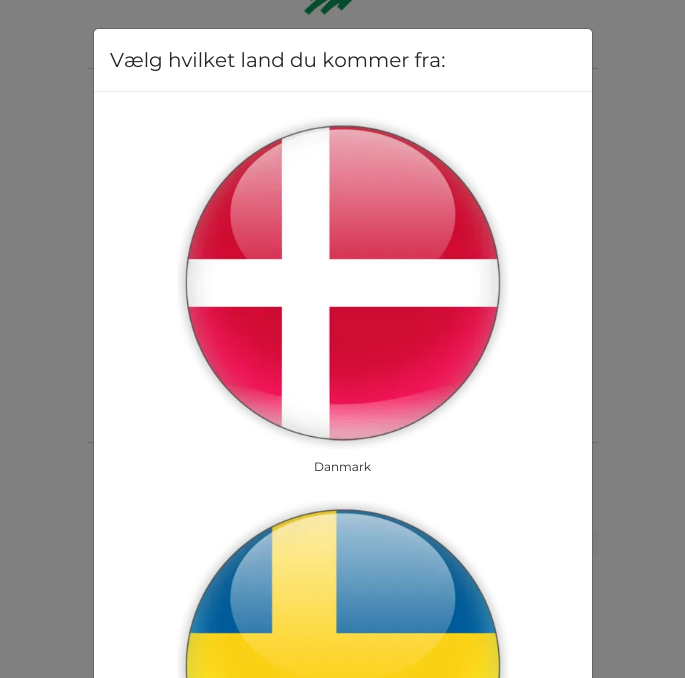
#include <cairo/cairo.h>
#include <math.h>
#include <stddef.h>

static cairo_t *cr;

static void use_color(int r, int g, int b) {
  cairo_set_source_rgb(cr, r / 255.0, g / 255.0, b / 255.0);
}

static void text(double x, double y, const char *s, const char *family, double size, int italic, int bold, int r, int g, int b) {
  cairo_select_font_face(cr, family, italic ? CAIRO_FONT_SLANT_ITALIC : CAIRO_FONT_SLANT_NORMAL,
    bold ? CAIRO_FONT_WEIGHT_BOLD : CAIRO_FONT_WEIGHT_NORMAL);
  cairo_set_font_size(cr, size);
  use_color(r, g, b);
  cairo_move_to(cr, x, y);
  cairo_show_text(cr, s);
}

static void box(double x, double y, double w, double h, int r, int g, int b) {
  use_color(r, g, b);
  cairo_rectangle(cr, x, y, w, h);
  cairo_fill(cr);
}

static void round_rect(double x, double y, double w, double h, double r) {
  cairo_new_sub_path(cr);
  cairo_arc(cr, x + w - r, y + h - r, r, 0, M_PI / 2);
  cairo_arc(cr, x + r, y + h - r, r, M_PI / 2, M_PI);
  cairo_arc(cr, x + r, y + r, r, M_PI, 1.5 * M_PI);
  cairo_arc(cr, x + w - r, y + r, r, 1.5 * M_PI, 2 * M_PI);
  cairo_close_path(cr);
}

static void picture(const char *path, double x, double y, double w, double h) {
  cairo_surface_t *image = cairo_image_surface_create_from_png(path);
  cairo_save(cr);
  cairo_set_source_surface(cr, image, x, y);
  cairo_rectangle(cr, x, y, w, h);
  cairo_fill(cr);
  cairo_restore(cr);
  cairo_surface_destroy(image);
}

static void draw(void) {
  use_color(128, 128, 128);
  cairo_paint(cr);
  picture("img_01.png", 303, 0, 51, 16);
  box(88, 68, 510, 1, 103, 106, 109);
  box(88, 442, 510, 1, 103, 106, 109);
  use_color(124, 125, 125);
  round_rect(564, 530, 34, 26, 3);
  cairo_fill(cr);
  use_color(255, 255, 255);
  cairo_new_path(cr);
  cairo_move_to(cr, 98, 29);
  cairo_line_to(cr, 588, 29);
  cairo_curve_to(cr, 590, 29, 592, 31, 592, 33);
  cairo_line_to(cr, 592, 678);
  cairo_line_to(cr, 94, 678);
  cairo_line_to(cr, 94, 33);
  cairo_curve_to(cr, 94, 31, 96, 29, 98, 29);
  cairo_close_path(cr);
  cairo_fill(cr);
  round_rect(93.5, 28.5, 499, 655, 4.5);
  cairo_set_source_rgba(cr, 0, 0, 0, 0.2);
  cairo_set_line_width(cr, 1);
  cairo_stroke(cr);
  box(94, 91, 498, 1, 233, 236, 239);
  picture("img_02.png", 177, 117, 332, 332);
  picture("img_03.png", 177, 501, 332, 177);
  text(110, 67, "Vælg hvilket land du kommer fra:", "Montserrat Thin", 20, 0, 0, 33, 37, 41);
  text(314, 471, "Danmark", "Montserrat Thin", 12, 0, 0, 33, 37, 41);
}

int main(void) {
  cairo_surface_t *surface = cairo_image_surface_create(CAIRO_FORMAT_RGB24, 685, 678);
  cr = cairo_create(surface);
  cairo_font_options_t *options = cairo_font_options_create();
  cairo_font_options_set_hint_metrics(options, CAIRO_HINT_METRICS_OFF);
  cairo_font_options_set_hint_style(options, CAIRO_HINT_STYLE_NONE);
  cairo_set_font_options(cr, options);
  cairo_set_miter_limit(cr, 4);
  draw();
  cairo_surface_write_to_png(surface, "out.png");
  cairo_font_options_destroy(options);
  cairo_destroy(cr);
  cairo_surface_destroy(surface);
  return 0;
}
